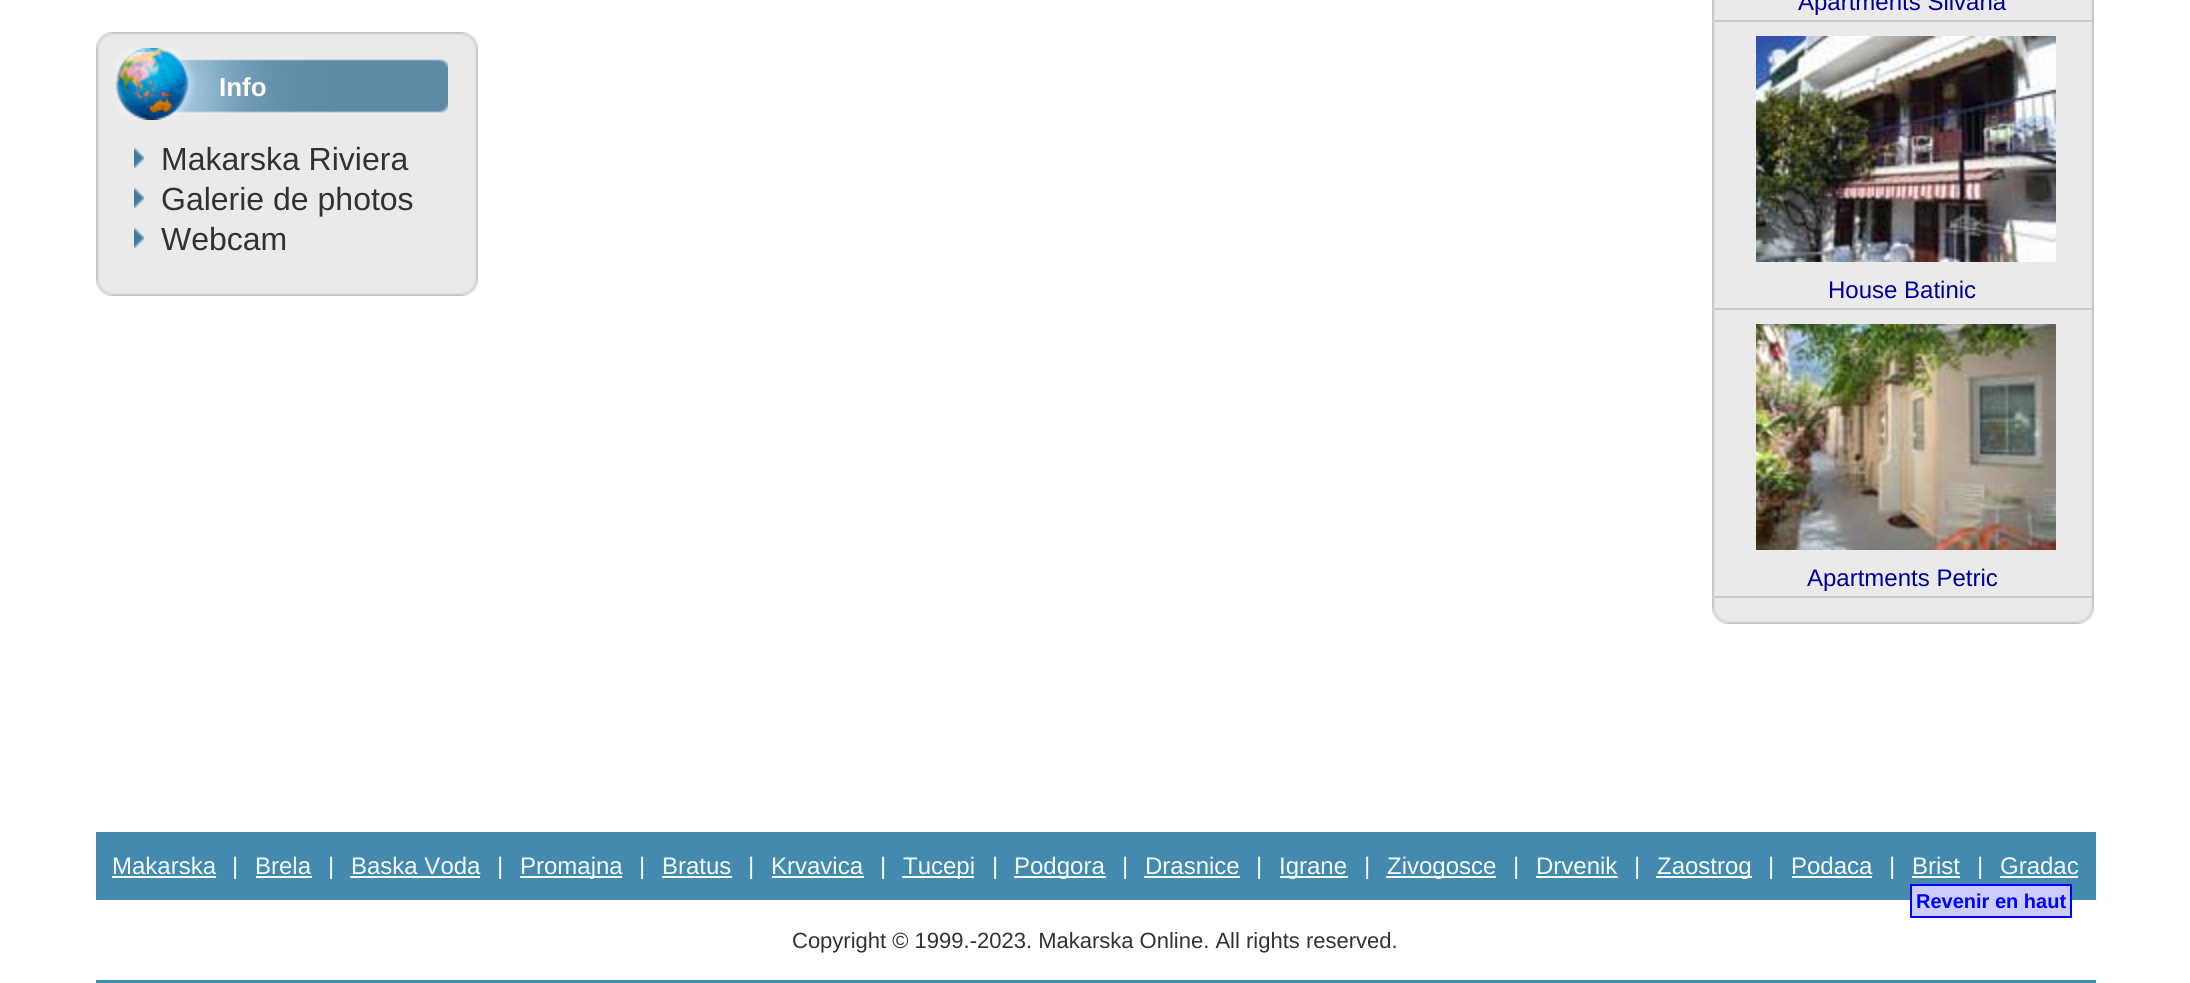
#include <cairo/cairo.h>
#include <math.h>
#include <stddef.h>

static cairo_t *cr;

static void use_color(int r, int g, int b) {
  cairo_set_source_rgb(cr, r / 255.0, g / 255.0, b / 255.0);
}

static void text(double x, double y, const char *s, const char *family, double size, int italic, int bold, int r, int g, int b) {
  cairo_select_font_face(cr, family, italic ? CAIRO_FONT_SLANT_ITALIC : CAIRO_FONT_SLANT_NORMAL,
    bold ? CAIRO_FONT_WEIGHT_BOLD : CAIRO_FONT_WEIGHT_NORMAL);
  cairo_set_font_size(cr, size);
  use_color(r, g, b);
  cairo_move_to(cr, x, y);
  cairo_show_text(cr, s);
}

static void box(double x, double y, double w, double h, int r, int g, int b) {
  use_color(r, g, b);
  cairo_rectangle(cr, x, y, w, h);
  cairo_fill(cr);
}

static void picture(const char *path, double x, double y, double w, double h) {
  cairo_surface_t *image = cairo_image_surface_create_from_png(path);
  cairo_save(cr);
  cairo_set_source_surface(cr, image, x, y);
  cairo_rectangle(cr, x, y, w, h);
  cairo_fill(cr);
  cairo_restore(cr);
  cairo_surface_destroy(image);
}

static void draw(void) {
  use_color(255, 255, 255);
  cairo_paint(cr);
  picture("img_01.png", 96, 48, 382, 232);
  picture("img_02.png", 96, 32, 382, 16);
  picture("img_03.png", 114, 48, 334, 72);
  picture("img_04.png", 134, 148, 10, 20);
  picture("img_04.png", 134, 188, 10, 20);
  picture("img_04.png", 134, 228, 10, 20);
  picture("img_05.png", 96, 280, 382, 16);
  picture("img_06.png", 1712, 0, 382, 608);
  box(1712, 20, 382, 2, 204, 204, 204);
  box(1712, 308, 382, 2, 204, 204, 204);
  picture("img_07.png", 1756, 36, 300, 226);
  box(1712, 596, 382, 2, 204, 204, 204);
  picture("img_08.png", 1756, 324, 300, 226);
  picture("img_05.png", 1712, 608, 382, 16);
  box(96, 832, 2000, 68, 68, 138, 174);
  box(112, 876, 104, 2, 243, 251, 255);
  box(256, 876, 56, 2, 243, 251, 255);
  box(350, 876, 130, 2, 243, 251, 255);
  box(520, 876, 102, 2, 243, 251, 255);
  box(662, 876, 70, 2, 243, 251, 255);
  box(772, 876, 92, 2, 243, 251, 255);
  box(902, 876, 72, 2, 243, 251, 255);
  box(1014, 876, 92, 2, 243, 251, 255);
  box(1144, 876, 96, 2, 243, 251, 255);
  box(1280, 876, 68, 2, 243, 251, 255);
  box(1386, 876, 110, 2, 243, 251, 255);
  box(1536, 876, 82, 2, 243, 251, 255);
  box(1656, 876, 96, 2, 243, 251, 255);
  box(1792, 876, 80, 2, 243, 251, 255);
  box(1912, 876, 48, 2, 243, 251, 255);
  box(2000, 876, 78, 2, 243, 251, 255);
  box(96, 980, 2000, 3, 68, 138, 174);
  use_color(204, 204, 255);
  cairo_rectangle(cr, 1911, 885, 160, 32);
  cairo_fill_preserve(cr);
  use_color(0, 0, 255);
  cairo_stroke(cr);
  text(219, 96, "Info", "Liberation Sans", 26, 0, 1, 255, 255, 255);
  text(161, 170, "Makarska Riviera", "Liberation Sans", 32, 0, 0, 50, 50, 50);
  text(161, 210, "Galerie de photos", "Liberation Sans", 32, 0, 0, 50, 50, 50);
  text(161, 250, "Webcam", "Liberation Sans", 32, 0, 0, 50, 50, 50);
  text(1798, 10, "Apartments Silvana", "Liberation Sans", 24, 0, 0, 0, 0, 153);
  text(1828, 298, "House Batinic", "Liberation Sans", 24, 0, 0, 0, 0, 153);
  text(1807, 586, "Apartments Petric", "Liberation Sans", 24, 0, 0, 0, 0, 153);
  text(112, 874, "Makarska", "Liberation Sans", 24, 0, 0, 243, 251, 255);
  text(232, 874, "|", "Liberation Sans", 24, 0, 0, 243, 251, 255);
  text(255, 874, "Brela", "Liberation Sans", 24, 0, 0, 243, 251, 255);
  text(328, 874, "|", "Liberation Sans", 24, 0, 0, 243, 251, 255);
  text(351, 874, "Baska Voda", "Liberation Sans", 24, 0, 0, 243, 251, 255);
  text(497, 874, "|", "Liberation Sans", 24, 0, 0, 243, 251, 255);
  text(520, 874, "Promajna", "Liberation Sans", 24, 0, 0, 243, 251, 255);
  text(639, 874, "|", "Liberation Sans", 24, 0, 0, 243, 251, 255);
  text(662, 874, "Bratus", "Liberation Sans", 24, 0, 0, 243, 251, 255);
  text(748, 874, "|", "Liberation Sans", 24, 0, 0, 243, 251, 255);
  text(771, 874, "Krvavica", "Liberation Sans", 24, 0, 0, 243, 251, 255);
  text(880, 874, "|", "Liberation Sans", 24, 0, 0, 243, 251, 255);
  text(903, 874, "Tucepi", "Liberation Sans", 24, 0, 0, 243, 251, 255);
  text(992, 874, "|", "Liberation Sans", 24, 0, 0, 243, 251, 255);
  text(1014, 874, "Podgora", "Liberation Sans", 24, 0, 0, 243, 251, 255);
  text(1122, 874, "|", "Liberation Sans", 24, 0, 0, 243, 251, 255);
  text(1145, 874, "Drasnice", "Liberation Sans", 24, 0, 0, 243, 251, 255);
  text(1256, 874, "|", "Liberation Sans", 24, 0, 0, 243, 251, 255);
  text(1279, 874, "Igrane", "Liberation Sans", 24, 0, 0, 243, 251, 255);
  text(1364, 874, "|", "Liberation Sans", 24, 0, 0, 243, 251, 255);
  text(1387, 874, "Zivogosce", "Liberation Sans", 24, 0, 0, 243, 251, 255);
  text(1513, 874, "|", "Liberation Sans", 24, 0, 0, 243, 251, 255);
  text(1536, 874, "Drvenik", "Liberation Sans", 24, 0, 0, 243, 251, 255);
  text(1634, 874, "|", "Liberation Sans", 24, 0, 0, 243, 251, 255);
  text(1657, 874, "Zaostrog", "Liberation Sans", 24, 0, 0, 243, 251, 255);
  text(1768, 874, "|", "Liberation Sans", 24, 0, 0, 243, 251, 255);
  text(1791, 874, "Podaca", "Liberation Sans", 24, 0, 0, 243, 251, 255);
  text(1889, 874, "|", "Liberation Sans", 24, 0, 0, 243, 251, 255);
  text(1912, 874, "Brist", "Liberation Sans", 24, 0, 0, 243, 251, 255);
  text(1977, 874, "|", "Liberation Sans", 24, 0, 0, 243, 251, 255);
  text(2000, 874, "Gradac", "Liberation Sans", 24, 0, 0, 243, 251, 255);
  text(792, 948, "Copyright © 1999.-2023. Makarska Online. All rights reserved.", "Liberation Sans", 22, 0, 0, 50, 50, 50);
  text(1916, 908, "Revenir en haut", "Liberation Sans", 20, 0, 1, 0, 0, 255);
}

int main(void) {
  cairo_surface_t *surface = cairo_image_surface_create(CAIRO_FORMAT_RGB24, 2190, 983);
  cr = cairo_create(surface);
  cairo_font_options_t *options = cairo_font_options_create();
  cairo_font_options_set_hint_metrics(options, CAIRO_HINT_METRICS_OFF);
  cairo_font_options_set_hint_style(options, CAIRO_HINT_STYLE_NONE);
  cairo_set_font_options(cr, options);
  cairo_set_miter_limit(cr, 4);
  draw();
  cairo_surface_write_to_png(surface, "out.png");
  cairo_font_options_destroy(options);
  cairo_destroy(cr);
  cairo_surface_destroy(surface);
  return 0;
}
